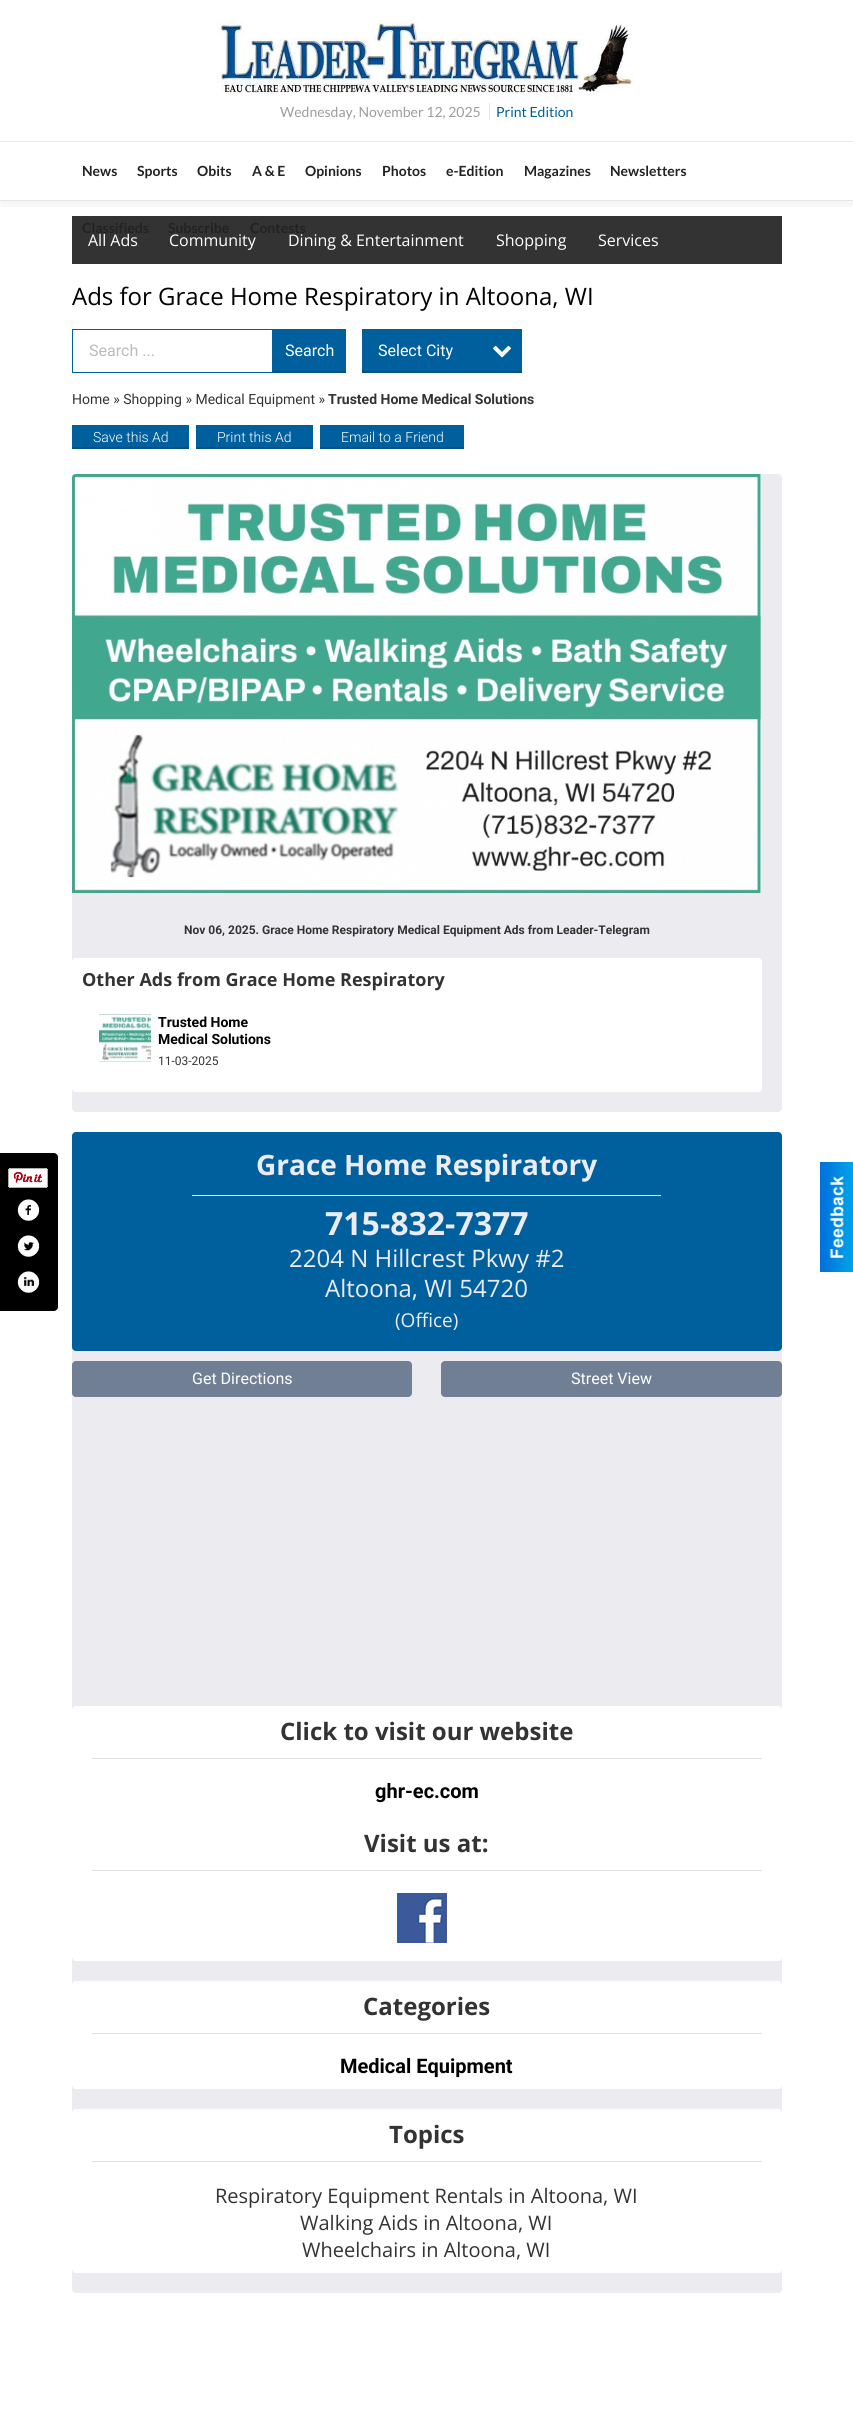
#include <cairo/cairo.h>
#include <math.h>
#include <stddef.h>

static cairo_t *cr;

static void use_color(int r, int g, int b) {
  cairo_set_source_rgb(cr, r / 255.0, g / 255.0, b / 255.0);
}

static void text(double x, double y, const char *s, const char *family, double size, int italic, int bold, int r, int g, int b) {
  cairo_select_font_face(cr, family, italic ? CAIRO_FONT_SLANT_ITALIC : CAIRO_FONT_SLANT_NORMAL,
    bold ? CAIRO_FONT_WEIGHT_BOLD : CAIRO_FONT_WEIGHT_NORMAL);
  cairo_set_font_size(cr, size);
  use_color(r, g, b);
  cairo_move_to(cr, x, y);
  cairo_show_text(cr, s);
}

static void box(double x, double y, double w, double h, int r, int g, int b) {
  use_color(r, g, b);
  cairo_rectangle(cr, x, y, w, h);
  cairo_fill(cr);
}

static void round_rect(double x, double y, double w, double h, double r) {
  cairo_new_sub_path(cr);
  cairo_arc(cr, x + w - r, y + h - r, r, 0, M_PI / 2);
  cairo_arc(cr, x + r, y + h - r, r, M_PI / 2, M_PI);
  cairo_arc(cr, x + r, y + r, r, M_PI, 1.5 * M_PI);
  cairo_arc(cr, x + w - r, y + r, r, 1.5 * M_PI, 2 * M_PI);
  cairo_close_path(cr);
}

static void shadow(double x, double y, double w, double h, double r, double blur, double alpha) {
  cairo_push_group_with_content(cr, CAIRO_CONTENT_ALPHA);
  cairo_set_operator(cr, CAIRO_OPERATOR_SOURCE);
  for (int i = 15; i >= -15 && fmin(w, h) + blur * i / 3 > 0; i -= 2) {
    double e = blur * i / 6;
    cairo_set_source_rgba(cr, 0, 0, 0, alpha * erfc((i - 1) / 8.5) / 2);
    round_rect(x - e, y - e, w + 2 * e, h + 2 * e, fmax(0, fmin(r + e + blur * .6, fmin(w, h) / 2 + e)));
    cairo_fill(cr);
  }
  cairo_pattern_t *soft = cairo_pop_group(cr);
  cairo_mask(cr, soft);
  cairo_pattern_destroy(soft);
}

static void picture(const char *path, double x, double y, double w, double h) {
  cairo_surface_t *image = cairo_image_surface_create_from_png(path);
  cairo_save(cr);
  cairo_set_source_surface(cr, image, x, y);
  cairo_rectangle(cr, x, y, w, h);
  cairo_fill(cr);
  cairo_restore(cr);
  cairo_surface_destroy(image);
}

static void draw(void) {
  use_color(255, 255, 255);
  cairo_paint(cr);
  box(72, 216, 710, 48, 51, 51, 51);
  cairo_save(cr);
  cairo_rectangle(cr, 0, 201, 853, 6);
  cairo_clip(cr);
  use_color(0, 0, 0);
  shadow(0, 5, 853, 201, 0, 5, 0.05);
  cairo_restore(cr);
  box(0, 200, 853, 1, 230, 230, 230);
  picture("img_01.png", 217, 20, 417, 73);
  box(489, 103, 1, 17, 230, 230, 230);
  box(0, 141, 853, 1, 230, 230, 230);
  use_color(0, 0, 0);
  cairo_new_path(cr);
  cairo_move_to(cr, 0, 1153);
  cairo_line_to(cr, 54, 1153);
  cairo_curve_to(cr, 56, 1153, 58, 1155, 58, 1157);
  cairo_line_to(cr, 58, 1307);
  cairo_curve_to(cr, 58, 1309, 56, 1311, 54, 1311);
  cairo_line_to(cr, 0, 1311);
  cairo_close_path(cr);
  cairo_fill(cr);
  picture("img_02.png", 8, 1168, 40, 20);
  picture("img_03.png", 17, 1199, 23, 22);
  picture("img_04.png", 17, 1235, 23, 22);
  picture("img_05.png", 17, 1271, 23, 22);
  cairo_rectangle(cr, 72.5, 329.5, 200, 43);
  use_color(0, 96, 157);
  cairo_set_line_width(cr, 1);
  cairo_stroke(cr);
  box(273, 329, 73, 42, 0, 96, 157);
  box(273, 371, 73, 2, 0, 82, 133);
  box(362, 329, 160, 42, 0, 96, 157);
  box(362, 371, 160, 2, 0, 82, 133);
  picture("img_06.png", 493, 345, 18, 13);
  box(72, 425, 117, 22, 0, 96, 157);
  box(72, 447, 117, 2, 0, 82, 133);
  box(196, 425, 117, 22, 0, 96, 157);
  box(196, 447, 117, 2, 0, 82, 133);
  box(320, 425, 144, 22, 0, 96, 157);
  box(320, 447, 144, 2, 0, 82, 133);
  use_color(236, 235, 240);
  round_rect(72, 474, 710, 638, 4);
  cairo_fill(cr);
  picture("img_07.png", 72, 474, 689, 419);
  use_color(255, 255, 255);
  round_rect(72, 958, 690, 134, 4);
  cairo_fill(cr);
  picture("img_08.png", 99, 1014, 52, 48);
  use_color(236, 235, 240);
  round_rect(72, 1132, 710, 1161, 4);
  cairo_fill(cr);
  use_color(0, 96, 157);
  round_rect(72, 1132, 710, 219, 4);
  cairo_fill(cr);
  box(192, 1195, 469, 1, 236, 235, 240);
  use_color(112, 127, 148);
  round_rect(72, 1361, 340, 36, 4);
  cairo_fill(cr);
  round_rect(441, 1361, 341, 36, 4);
  cairo_fill(cr);
  use_color(255, 255, 255);
  round_rect(72, 1706, 710, 255, 4);
  cairo_fill(cr);
  box(92, 1758, 670, 1, 223, 223, 223);
  box(92, 1870, 670, 1, 223, 223, 223);
  picture("img_09.png", 397, 1893, 50, 50);
  use_color(255, 255, 255);
  round_rect(72, 1981, 710, 108, 4);
  cairo_fill(cr);
  box(92, 2033, 670, 1, 223, 223, 223);
  use_color(255, 255, 255);
  round_rect(72, 2109, 710, 164, 4);
  cairo_fill(cr);
  box(92, 2161, 670, 1, 223, 223, 223);
  picture("img_10.png", 820, 1162, 33, 110);
  text(280, 117, "Wednesday, November 12, 2025", "Lato", 14, 0, 0, 158, 156, 156);
  text(496, 117, "Print Edition", "Lato", 14, 0, 0, 0, 96, 157);
  text(82, 176, "News", "Lato", 14, 0, 1, 34, 34, 34);
  text(137, 176, "Sports", "Lato", 14, 0, 1, 34, 34, 34);
  text(197, 176, "Obits", "Lato", 14, 0, 1, 34, 34, 34);
  text(252, 176, "A & E", "Lato", 14, 0, 1, 34, 34, 34);
  text(305, 176, "Opinions", "Lato", 14, 0, 1, 34, 34, 34);
  text(382, 176, "Photos", "Lato", 14, 0, 1, 34, 34, 34);
  text(446, 176, "e-Edition", "Lato", 14, 0, 1, 34, 34, 34);
  text(524, 176, "Magazines", "Lato", 14, 0, 1, 34, 34, 34);
  text(610, 176, "Newsletters", "Lato", 14, 0, 1, 34, 34, 34);
  text(82, 233, "Classifieds", "Lato", 14, 0, 1, 34, 34, 34);
  text(168, 233, "Subscribe", "Lato", 14, 0, 1, 34, 34, 34);
  text(250, 233, "Contests", "Lato", 14, 0, 1, 34, 34, 34);
  text(88, 246, "All Ads", "Open Sans", 16, 0, 0, 255, 255, 255);
  text(169, 246, "Community", "Open Sans", 16, 0, 0, 255, 255, 255);
  text(288, 246, "Dining & Entertainment", "Open Sans", 16, 0, 0, 255, 255, 255);
  text(496, 246, "Shopping", "Open Sans", 16, 0, 0, 255, 255, 255);
  text(598, 246, "Services", "Open Sans", 16, 0, 0, 255, 255, 255);
  text(72, 305, "Ads for Grace Home Respiratory in Altoona, WI", "Open Sans", 24, 0, 0, 0, 0, 0);
  text(89, 356, "Search ...", "Roboto", 16, 0, 0, 187, 187, 187);
  text(285, 356, "Search", "Roboto", 16, 0, 0, 255, 255, 255);
  text(378, 356, "Select City", "Roboto", 16, 0, 0, 255, 255, 255);
  text(72, 404, "Home » Shopping » Medical Equipment »", "Roboto", 14, 0, 0, 51, 51, 51);
  text(328, 404, "Trusted Home Medical Solutions", "Roboto", 14, 0, 1, 51, 51, 51);
  text(93, 442, "Save this Ad", "Roboto Light", 14, 0, 0, 255, 255, 255);
  text(217, 442, "Print this Ad", "Roboto Light", 14, 0, 0, 255, 255, 255);
  text(341, 442, "Email to a Friend", "Roboto Light", 14, 0, 0, 255, 255, 255);
  text(184, 934, "Nov 06, 2025. Grace Home Respiratory Medical Equipment Ads from Leader-Telegram", "Roboto", 12, 0, 1, 51, 51, 51);
  text(82, 986, "Other Ads from Grace Home Respiratory", "Open Sans", 18, 0, 1, 51, 51, 51);
  text(158, 1027, "Trusted Home", "Roboto", 14, 0, 1, 0, 0, 0);
  text(158, 1044, "Medical Solutions", "Roboto", 14, 0, 1, 0, 0, 0);
  text(158, 1065, "11-03-2025", "Roboto", 12, 0, 0, 51, 51, 51);
  text(256, 1175, "Grace Home Respiratory", "Open Sans", 28, 0, 1, 236, 235, 240);
  text(325, 1235, "715-832-7377", "Open Sans", 32, 0, 1, 236, 235, 240);
  text(289, 1267, "2204 N Hillcrest Pkwy #2", "Open Sans", 24, 0, 0, 236, 235, 240);
  text(325, 1297, "Altoona, WI 54720", "Open Sans", 24, 0, 0, 236, 235, 240);
  text(395, 1327, "(Office)", "Open Sans", 19, 0, 0, 236, 235, 240);
  text(192, 1384, "Get Directions", "Roboto", 16, 0, 0, 255, 255, 255);
  text(571, 1384, "Street View", "Roboto", 16, 0, 0, 255, 255, 255);
  text(280, 1740, "Click to visit our website", "Open Sans", 24, 0, 1, 51, 51, 51);
  text(375, 1798, "ghr-ec.com", "Roboto", 20, 0, 1, 0, 0, 0);
  text(364, 1852, "Visit us at:", "Open Sans", 24, 0, 1, 51, 51, 51);
  text(363, 2015, "Categories", "Open Sans", 24, 0, 1, 51, 51, 51);
  text(340, 2073, "Medical Equipment", "Roboto", 20, 0, 1, 0, 0, 0);
  text(389, 2143, "Topics", "Open Sans", 24, 0, 1, 51, 51, 51);
  text(215, 2203, "Respiratory Equipment Rentals in Altoona, WI", "Open Sans", 20, 0, 0, 51, 51, 51);
  text(300, 2230, "Walking Aids in Altoona, WI", "Open Sans", 20, 0, 0, 51, 51, 51);
  text(302, 2257, "Wheelchairs in Altoona, WI", "Open Sans", 20, 0, 0, 51, 51, 51);
}

int main(void) {
  cairo_surface_t *surface = cairo_image_surface_create(CAIRO_FORMAT_RGB24, 853, 2433);
  cr = cairo_create(surface);
  cairo_font_options_t *options = cairo_font_options_create();
  cairo_font_options_set_hint_metrics(options, CAIRO_HINT_METRICS_OFF);
  cairo_font_options_set_hint_style(options, CAIRO_HINT_STYLE_NONE);
  cairo_set_font_options(cr, options);
  cairo_set_miter_limit(cr, 4);
  draw();
  cairo_surface_write_to_png(surface, "out.png");
  cairo_font_options_destroy(options);
  cairo_destroy(cr);
  cairo_surface_destroy(surface);
  return 0;
}
